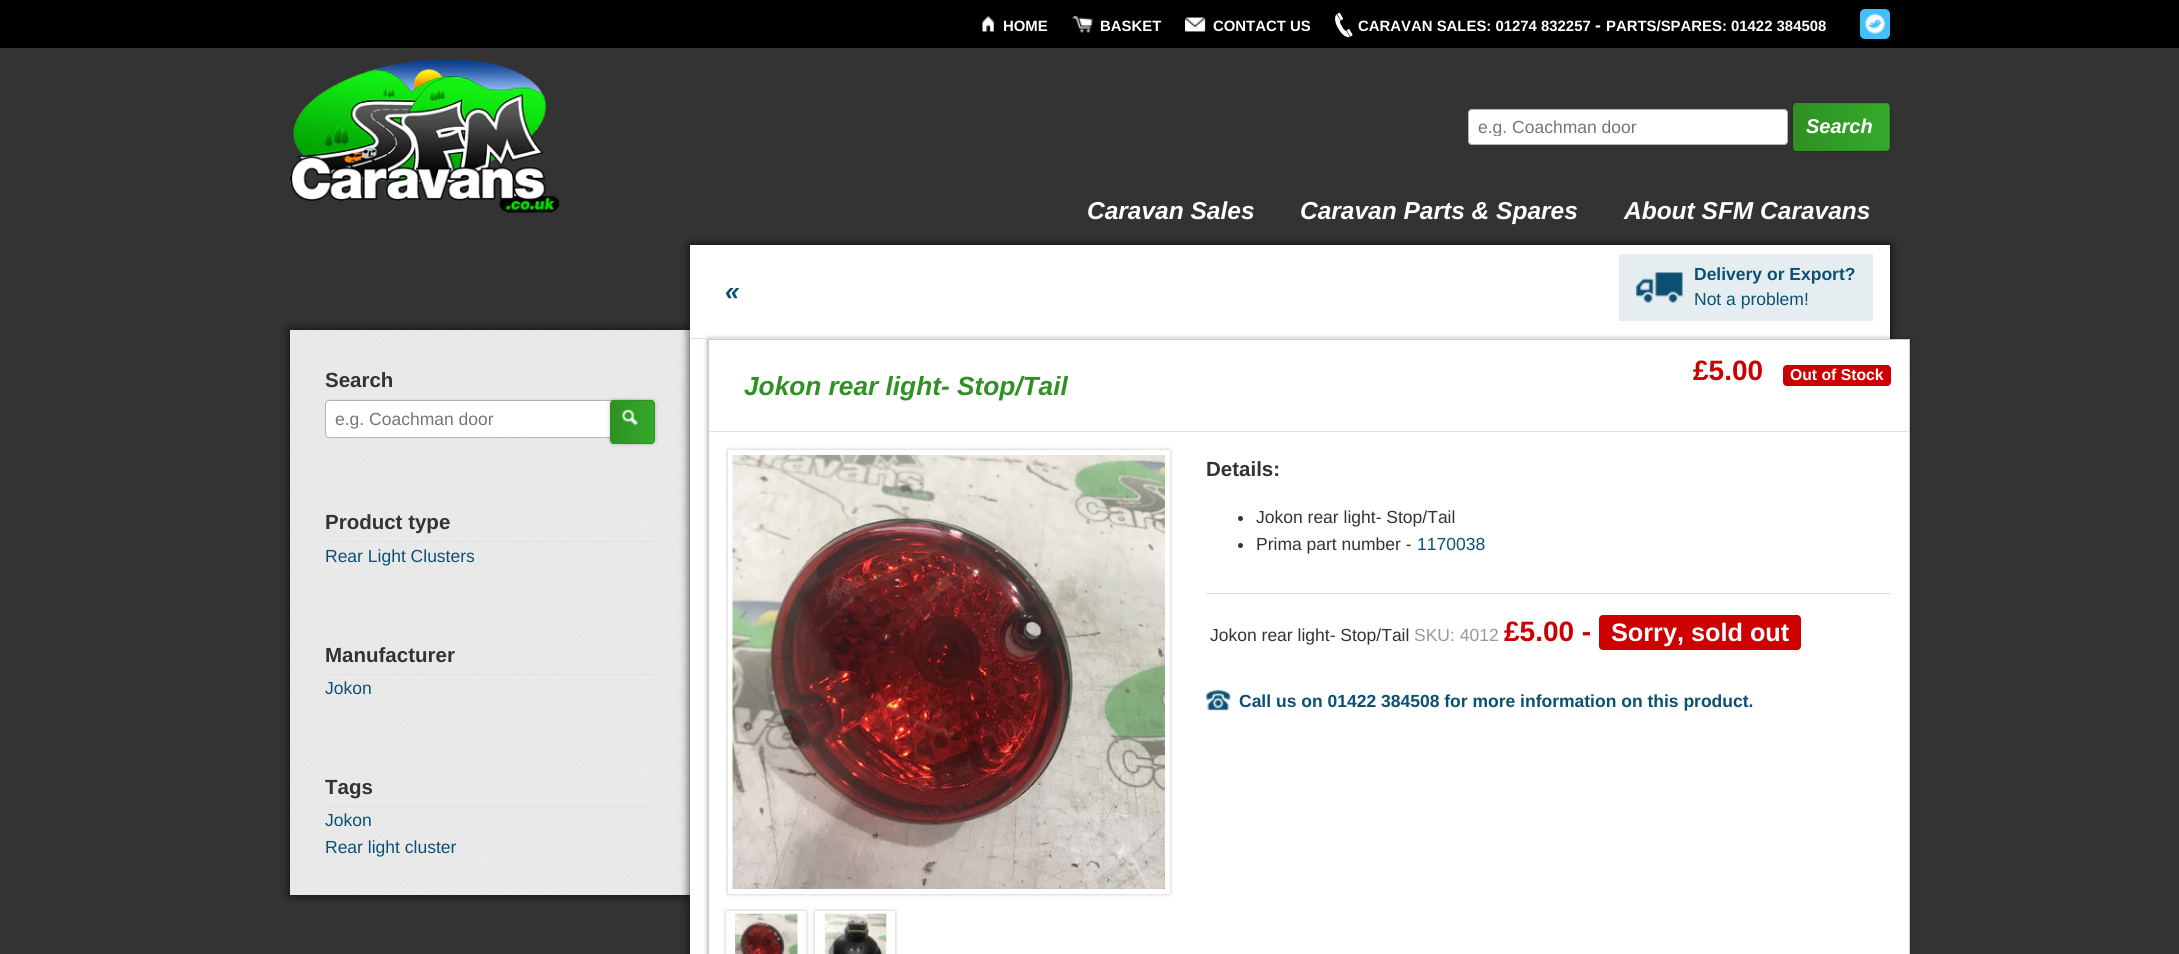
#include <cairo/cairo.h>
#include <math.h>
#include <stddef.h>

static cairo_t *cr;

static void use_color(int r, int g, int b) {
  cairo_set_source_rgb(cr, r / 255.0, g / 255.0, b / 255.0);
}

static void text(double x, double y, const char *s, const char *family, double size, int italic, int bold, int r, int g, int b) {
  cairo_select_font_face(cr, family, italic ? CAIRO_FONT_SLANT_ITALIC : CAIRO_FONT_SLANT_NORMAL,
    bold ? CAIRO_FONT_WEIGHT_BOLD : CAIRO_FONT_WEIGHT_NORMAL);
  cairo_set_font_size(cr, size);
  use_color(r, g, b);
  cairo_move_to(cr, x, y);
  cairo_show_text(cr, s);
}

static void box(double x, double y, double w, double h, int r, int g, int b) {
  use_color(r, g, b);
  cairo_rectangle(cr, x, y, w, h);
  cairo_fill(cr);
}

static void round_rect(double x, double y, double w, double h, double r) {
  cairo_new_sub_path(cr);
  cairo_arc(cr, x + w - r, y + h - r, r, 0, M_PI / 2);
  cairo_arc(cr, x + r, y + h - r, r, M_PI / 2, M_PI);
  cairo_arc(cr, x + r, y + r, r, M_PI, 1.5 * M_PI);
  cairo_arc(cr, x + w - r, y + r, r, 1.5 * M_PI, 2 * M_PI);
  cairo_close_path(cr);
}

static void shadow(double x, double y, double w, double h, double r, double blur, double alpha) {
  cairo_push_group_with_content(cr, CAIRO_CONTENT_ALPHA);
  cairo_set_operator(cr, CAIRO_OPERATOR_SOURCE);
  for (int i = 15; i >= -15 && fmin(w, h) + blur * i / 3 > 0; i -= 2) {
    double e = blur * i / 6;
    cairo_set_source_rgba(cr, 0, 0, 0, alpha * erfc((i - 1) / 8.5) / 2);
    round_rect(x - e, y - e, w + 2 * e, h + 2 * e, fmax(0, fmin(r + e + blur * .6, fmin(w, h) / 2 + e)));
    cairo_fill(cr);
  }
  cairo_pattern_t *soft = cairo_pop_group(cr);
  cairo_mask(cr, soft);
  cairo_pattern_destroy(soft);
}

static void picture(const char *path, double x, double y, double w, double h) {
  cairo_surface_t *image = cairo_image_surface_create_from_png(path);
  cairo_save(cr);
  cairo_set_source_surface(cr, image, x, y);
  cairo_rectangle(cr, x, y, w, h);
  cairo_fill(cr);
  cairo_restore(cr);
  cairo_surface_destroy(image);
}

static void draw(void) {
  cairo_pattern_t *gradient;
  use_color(51, 51, 51);
  cairo_paint(cr);
  box(0, 0, 2179, 48, 0, 0, 0);
  picture("img_01.png", 982, 16, 12, 16);
  picture("img_02.png", 1072, 16, 21, 17);
  picture("img_03.png", 1185, 17, 21, 15);
  picture("img_04.png", 1335, 12, 18, 26);
  use_color(66, 191, 253);
  round_rect(1860, 9, 30, 30, 5);
  cairo_fill(cr);
  picture("img_05.png", 1865, 13, 21, 21);
  picture("img_06.png", 290, 58, 269, 155);
  use_color(255, 255, 255);
  round_rect(1468, 109, 320, 36, 4);
  cairo_fill(cr);
  round_rect(1468.5, 109.5, 319, 35, 3.5);
  cairo_set_source_rgba(cr, 0, 0, 0, 0.3);
  cairo_set_line_width(cr, 1);
  cairo_stroke(cr);
  use_color(0, 0, 0);
  shadow(1793, 103, 97, 48, 4, 2, 0.25);
  cairo_save(cr);
  round_rect(1793, 103, 97, 48, 4);
  cairo_clip(cr);
  gradient = cairo_pattern_create_linear(1794, 127, 1889, 127);
  cairo_pattern_add_color_stop_rgba(gradient, 0, 0.184, 0.565, 0.141, 1);
  cairo_pattern_add_color_stop_rgba(gradient, 1, 0.204, 0.667, 0.165, 1);
  cairo_set_source(cr, gradient);
  cairo_pattern_destroy(gradient);
  cairo_rectangle(cr, 1794, 103, 95, 48);
  cairo_fill(cr);
  cairo_restore(cr);
  round_rect(1793.5, 103.5, 96, 47, 3.5);
  use_color(47, 144, 36);
  cairo_stroke(cr);
  use_color(0, 0, 0);
  shadow(290, 330, 400, 565, 0, 5, 0.8);
  picture("img_07.png", 290, 330, 400, 565);
  box(325, 399, 330, 1, 224, 224, 224);
  use_color(255, 255, 255);
  round_rect(325, 400, 318, 38, 4);
  cairo_fill(cr);
  round_rect(325.5, 400.5, 317, 37, 3.5);
  cairo_set_source_rgba(cr, 0, 0, 0, 0.3);
  cairo_stroke(cr);
  use_color(0, 0, 0);
  shadow(610, 400, 45, 44, 4, 2, 0.25);
  cairo_save(cr);
  round_rect(610, 400, 45, 44, 4);
  cairo_clip(cr);
  gradient = cairo_pattern_create_linear(611, 422, 654, 422);
  cairo_pattern_add_color_stop_rgba(gradient, 0, 0.184, 0.565, 0.141, 1);
  cairo_pattern_add_color_stop_rgba(gradient, 1, 0.204, 0.667, 0.165, 1);
  cairo_set_source(cr, gradient);
  cairo_pattern_destroy(gradient);
  cairo_rectangle(cr, 611, 400, 43, 44);
  cairo_fill(cr);
  cairo_restore(cr);
  round_rect(610.5, 400.5, 44, 43, 3.5);
  use_color(47, 144, 36);
  cairo_stroke(cr);
  picture("img_08.png", 622, 409, 16, 17);
  box(325, 541, 330, 1, 224, 224, 224);
  box(325, 674, 330, 1, 224, 224, 224);
  box(325, 806, 330, 1, 224, 224, 224);
  use_color(0, 0, 0);
  shadow(690, 245, 1200, 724, 0, 5, 0.8);
  box(690, 245, 1200, 709, 255, 255, 255);
  use_color(0, 0, 0);
  shadow(708, 339, 1202, 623, 0, 2.5, 0.4);
  box(690, 338, 1200, 1, 224, 224, 224);
  box(1619, 254, 254, 67, 230, 237, 241);
  picture("img_09.png", 1636, 272, 47, 31);
  box(709, 340, 1200, 614, 255, 255, 255);
  box(708, 339, 1202, 1, 204, 204, 204);
  box(1909, 339, 1, 615, 204, 204, 204);
  box(708, 339, 1, 615, 204, 204, 204);
  box(709, 431, 1200, 1, 224, 224, 224);
  use_color(204, 0, 0);
  round_rect(1783, 365, 108, 21, 4);
  cairo_fill(cr);
  use_color(0, 0, 0);
  shadow(728, 450, 442, 444, 0, 2, 0.25);
  cairo_rectangle(cr, 730.5, 452.5, 437, 439);
  use_color(255, 255, 255);
  cairo_set_line_width(cr, 5);
  cairo_stroke(cr);
  picture("img_10.png", 732, 455, 433, 434);
  cairo_save(cr);
  cairo_set_fill_rule(cr, CAIRO_FILL_RULE_EVEN_ODD);
  cairo_new_path(cr);
  cairo_move_to(cr, 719, 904);
  cairo_line_to(cr, 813, 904);
  cairo_line_to(cr, 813, 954);
  cairo_line_to(cr, 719, 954);
  cairo_close_path(cr);
  cairo_move_to(cr, 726, 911);
  cairo_line_to(cr, 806, 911);
  cairo_line_to(cr, 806, 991);
  cairo_line_to(cr, 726, 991);
  cairo_close_path(cr);
  cairo_clip(cr);
  use_color(0, 0, 0);
  shadow(726, 911, 80, 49, 0, 2, 0.25);
  cairo_restore(cr);
  cairo_rectangle(cr, 727.5, 912.5, 77, 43);
  cairo_set_line_width(cr, 3);
  cairo_stroke(cr);
  picture("img_11.png", 735, 913, 63, 41);
  cairo_save(cr);
  cairo_set_fill_rule(cr, CAIRO_FILL_RULE_EVEN_ODD);
  cairo_new_path(cr);
  cairo_move_to(cr, 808, 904);
  cairo_line_to(cr, 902, 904);
  cairo_line_to(cr, 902, 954);
  cairo_line_to(cr, 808, 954);
  cairo_close_path(cr);
  cairo_move_to(cr, 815, 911);
  cairo_line_to(cr, 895, 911);
  cairo_line_to(cr, 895, 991);
  cairo_line_to(cr, 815, 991);
  cairo_close_path(cr);
  cairo_clip(cr);
  use_color(0, 0, 0);
  shadow(815, 911, 80, 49, 0, 2, 0.25);
  cairo_restore(cr);
  cairo_rectangle(cr, 816.5, 912.5, 77, 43);
  cairo_stroke(cr);
  picture("img_12.png", 825, 913, 62, 41);
  use_color(51, 51, 51);
  cairo_arc(cr, 1240.5, 518.5, 2.5, 0, 2 * M_PI);
  cairo_fill(cr);
  cairo_arc(cr, 1240.5, 545.5, 2.5, 0, 2 * M_PI);
  cairo_fill(cr);
  box(1206, 593, 685, 1, 224, 224, 224);
  use_color(204, 0, 0);
  round_rect(1599, 615, 202, 35, 4);
  cairo_fill(cr);
  picture("img_13.png", 1206, 689, 25, 22);
  text(1003, 31, "HOME", "Liberation Sans", 14.9, 0, 1, 255, 255, 255);
  text(1100, 31, "BASKET", "Liberation Sans", 14.9, 0, 1, 255, 255, 255);
  text(1213, 31, "CONTACT US", "Liberation Sans", 14.9, 0, 1, 255, 255, 255);
  text(1358, 31, "CARAVAN SALES: 01274 832257", "Liberation Sans", 14.9, 0, 1, 255, 255, 255);
  text(1595, 31, "-", "Liberation Sans", 17.5, 0, 1, 255, 255, 255);
  text(1606, 31, "PARTS/SPARES: 01422 384508", "Liberation Sans", 14.9, 0, 1, 255, 255, 255);
  cairo_save(cr);
  cairo_rectangle(cr, 1478, 116, 295, 20);
  cairo_clip(cr);
  text(1478, 133, "e.g. Coachman door", "Liberation Sans", 17.5, 0, 0, 117, 117, 117);
  cairo_restore(cr);
  text(1806, 133, "Search", "Liberation Sans", 20, 1, 1, 255, 255, 255);
  text(1087, 219, "Caravan Sales", "Liberation Sans", 24.5, 1, 1, 255, 255, 255);
  text(1300, 219, "Caravan Parts & Spares", "Liberation Sans", 24.5, 1, 1, 255, 255, 255);
  text(1624, 219, "About SFM Caravans", "Liberation Sans", 24.5, 1, 1, 255, 255, 255);
  text(325, 387, "Search", "Liberation Sans", 20.5, 0, 1, 51, 51, 51);
  text(335, 425, "e.g. Coachman door", "Liberation Sans", 17.5, 0, 0, 117, 117, 117);
  text(325, 529, "Product type", "Liberation Sans", 20.5, 0, 1, 51, 51, 51);
  text(325, 562, "Rear Light Clusters", "Liberation Sans", 17.5, 0, 0, 11, 80, 115);
  text(325, 662, "Manufacturer", "Liberation Sans", 20.5, 0, 1, 51, 51, 51);
  text(325, 694, "Jokon", "Liberation Sans", 17.5, 0, 0, 11, 80, 115);
  text(325, 794, "Tags", "Liberation Sans", 20.5, 0, 1, 51, 51, 51);
  text(325, 826, "Jokon", "Liberation Sans", 17.5, 0, 0, 11, 80, 115);
  text(325, 853, "Rear light cluster", "Liberation Sans", 17.5, 0, 0, 11, 80, 115);
  text(725, 300, "«", "Liberation Sans", 26.25, 1, 1, 11, 80, 115);
  text(1694, 280, "Delivery or Export?", "Liberation Sans", 17.5, 0, 1, 11, 80, 115);
  text(1694, 305, "Not a problem!", "Liberation Sans", 17.5, 0, 0, 11, 80, 115);
  text(1693, 380, "£5.00", "Liberation Sans", 28, 0, 1, 204, 0, 0);
  text(1790, 380, "Out of Stock", "Liberation Sans", 15.75, 0, 1, 255, 255, 255);
  text(744, 395, "Jokon rear light- Stop/Tail", "Liberation Sans", 26.25, 1, 1, 47, 144, 36);
  text(1206, 476, "Details:", "Liberation Sans", 20.5, 0, 1, 51, 51, 51);
  text(1256, 523, "Jokon rear light- Stop/Tail", "Liberation Sans", 17.5, 0, 0, 51, 51, 51);
  text(1256, 550, "Prima part number -", "Liberation Sans", 17.5, 0, 0, 51, 51, 51);
  text(1417, 550, "1170038", "Liberation Sans", 17.5, 0, 0, 11, 80, 115);
  text(1210, 641, "Jokon rear light- Stop/Tail", "Liberation Sans", 17.5, 0, 0, 51, 51, 51);
  text(1414, 641, "SKU: 4012", "Liberation Sans", 17.5, 0, 0, 153, 153, 153);
  text(1504, 641, "£5.00 -", "Liberation Sans", 28, 0, 1, 204, 0, 0);
  text(1611, 641, "Sorry, sold out", "Liberation Sans", 25.25, 0, 1, 255, 255, 255);
  text(1239, 707, "Call us on 01422 384508 for more information on this product.", "Liberation Sans", 17.5, 0, 1, 11, 80, 115);
}

int main(void) {
  cairo_surface_t *surface = cairo_image_surface_create(CAIRO_FORMAT_RGB24, 2179, 954);
  cr = cairo_create(surface);
  cairo_font_options_t *options = cairo_font_options_create();
  cairo_font_options_set_hint_metrics(options, CAIRO_HINT_METRICS_OFF);
  cairo_font_options_set_hint_style(options, CAIRO_HINT_STYLE_NONE);
  cairo_set_font_options(cr, options);
  cairo_set_miter_limit(cr, 4);
  draw();
  cairo_surface_write_to_png(surface, "out.png");
  cairo_font_options_destroy(options);
  cairo_destroy(cr);
  cairo_surface_destroy(surface);
  return 0;
}
